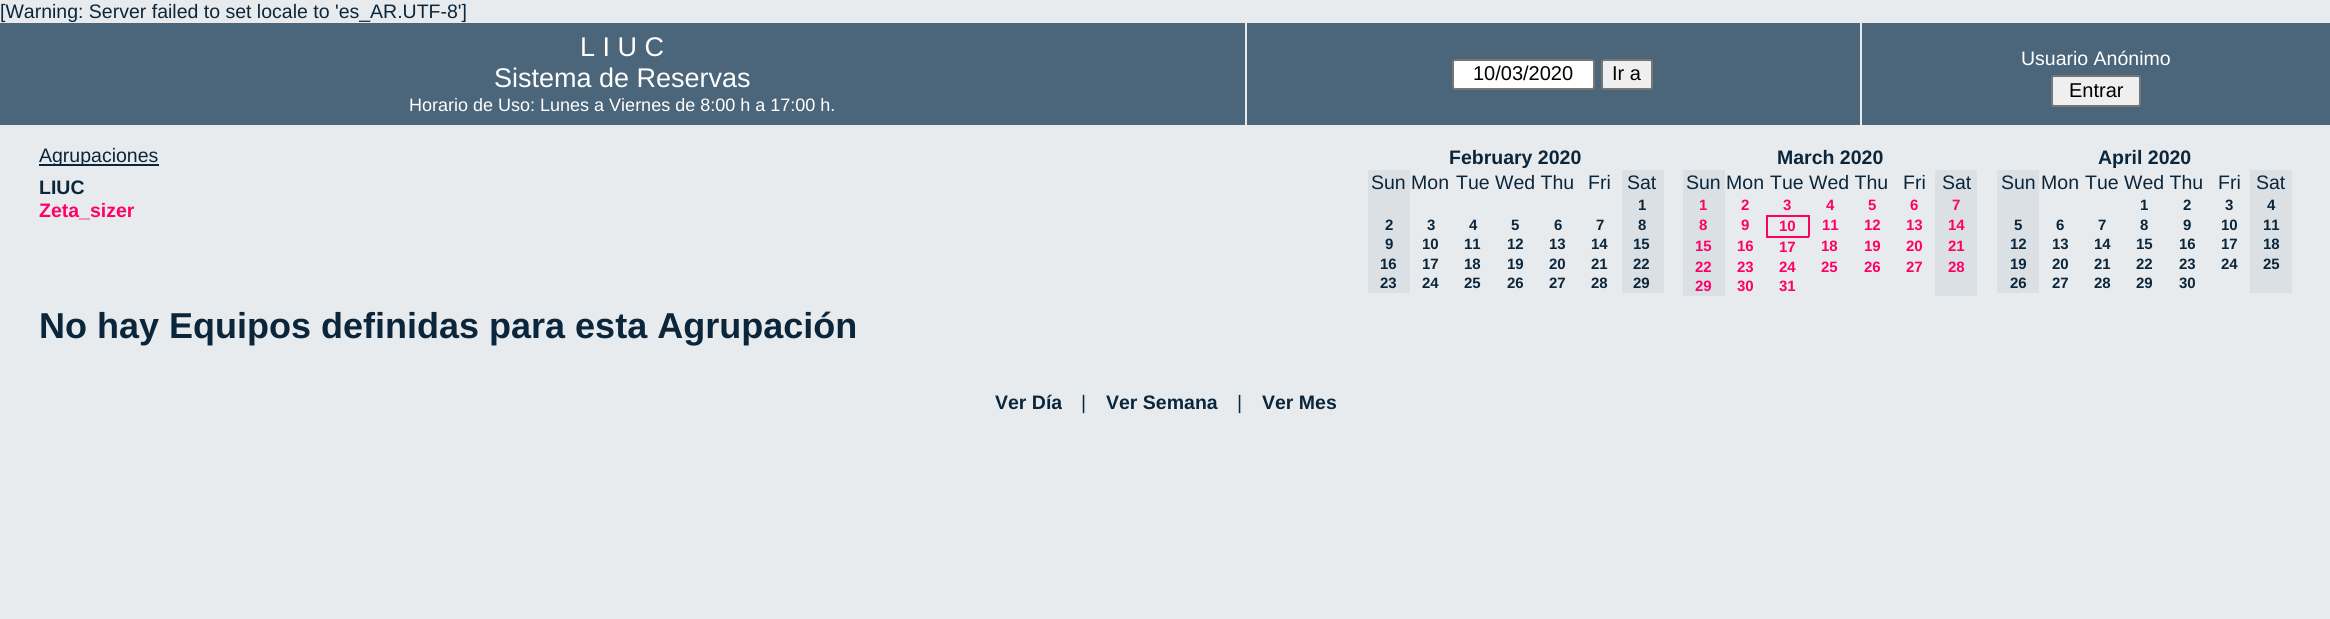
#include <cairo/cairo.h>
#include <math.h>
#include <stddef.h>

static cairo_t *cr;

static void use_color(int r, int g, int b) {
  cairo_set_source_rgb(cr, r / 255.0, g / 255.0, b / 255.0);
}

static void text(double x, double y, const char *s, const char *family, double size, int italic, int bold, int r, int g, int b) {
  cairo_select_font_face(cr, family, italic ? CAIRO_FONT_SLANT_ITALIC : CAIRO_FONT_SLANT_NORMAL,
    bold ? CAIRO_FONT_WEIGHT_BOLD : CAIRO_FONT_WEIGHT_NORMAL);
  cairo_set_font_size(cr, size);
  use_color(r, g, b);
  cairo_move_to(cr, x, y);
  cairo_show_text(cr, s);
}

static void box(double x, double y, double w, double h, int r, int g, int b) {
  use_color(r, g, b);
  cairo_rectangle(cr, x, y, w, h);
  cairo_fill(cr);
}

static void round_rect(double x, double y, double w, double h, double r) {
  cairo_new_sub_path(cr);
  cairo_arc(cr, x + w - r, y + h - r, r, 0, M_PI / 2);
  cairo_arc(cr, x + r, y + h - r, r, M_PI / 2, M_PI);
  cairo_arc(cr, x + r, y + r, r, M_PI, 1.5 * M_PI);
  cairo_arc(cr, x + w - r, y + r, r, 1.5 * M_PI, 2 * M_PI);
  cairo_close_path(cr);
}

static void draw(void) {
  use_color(231, 235, 238);
  cairo_paint(cr);
  box(0, 23, 1245, 102, 75, 102, 123);
  box(1247, 23, 613, 102, 75, 102, 123);
  use_color(255, 255, 255);
  round_rect(1453, 60, 141, 29, 2);
  cairo_fill_preserve(cr);
  use_color(118, 118, 118);
  cairo_stroke(cr);
  use_color(239, 239, 239);
  round_rect(1602, 60, 50, 29, 2);
  cairo_fill_preserve(cr);
  use_color(118, 118, 118);
  cairo_stroke(cr);
  box(1862, 23, 468, 102, 75, 102, 123);
  use_color(239, 239, 239);
  round_rect(2052, 76, 88, 30, 2);
  cairo_fill_preserve(cr);
  use_color(118, 118, 118);
  cairo_stroke(cr);
  box(39, 164, 120, 2, 11, 38, 59);
  box(1368, 170, 42, 123, 218, 224, 228);
  box(1622, 170, 42, 123, 218, 224, 228);
  box(1683, 170, 42, 126, 218, 224, 228);
  box(1935, 170, 42, 126, 218, 224, 228);
  box(1766, 215, 43, 2, 255, 0, 102);
  box(1808, 215, 2, 22, 255, 0, 102);
  box(1766, 236, 43, 2, 255, 0, 102);
  box(1766, 215, 2, 22, 255, 0, 102);
  box(1997, 170, 42, 123, 218, 224, 228);
  box(2250, 170, 42, 123, 218, 224, 228);
  text(0, 18, "[Warning: Server failed to set locale to 'es_AR.UTF-8']", "Liberation Sans", 19.5, 0, 0, 11, 38, 59);
  text(580, 56, "L I U C", "Liberation Sans", 27, 0, 0, 255, 255, 255);
  text(494, 87, "Sistema de Reservas", "Liberation Sans", 27, 0, 0, 255, 255, 255);
  text(409, 111, "Horario de Uso: Lunes a Viernes de 8:00 h a 17:00 h.", "Liberation Sans", 18, 0, 0, 255, 255, 255);
  text(1473, 80, "10/03/2020", "Liberation Sans", 20, 0, 0, 0, 0, 0);
  text(1612, 80, "Ir a", "Liberation Sans", 20, 0, 0, 0, 0, 0);
  text(2021, 65, "Usuario Anónimo", "Liberation Sans", 19.5, 0, 0, 255, 255, 255);
  text(2069, 97, "Entrar", "Liberation Sans", 20, 0, 0, 0, 0, 0);
  text(39, 162, "Agrupaciones", "Liberation Sans", 19.5, 0, 0, 11, 38, 59);
  text(39, 194, "LIUC", "Liberation Sans", 19.5, 0, 1, 11, 38, 59);
  text(39, 217, "Zeta_sizer", "Liberation Sans", 19.5, 0, 1, 255, 0, 102);
  text(1449, 164, "February 2020", "Liberation Sans", 19.5, 0, 1, 11, 38, 59);
  text(1371, 189, "Sun Mon", "Liberation Sans", 19.5, 0, 0, 11, 38, 59);
  text(1456, 189, "Tue Wed Thu", "Liberation Sans", 19.5, 0, 0, 11, 38, 59);
  text(1588, 189, "Fri", "Liberation Sans", 19.5, 0, 0, 11, 38, 59);
  text(1627, 189, "Sat", "Liberation Sans", 19.5, 0, 0, 11, 38, 59);
  text(1638, 210, "1", "Liberation Sans", 15, 0, 1, 11, 38, 59);
  text(1385, 230, "2", "Liberation Sans", 15, 0, 1, 11, 38, 59);
  text(1427, 230, "3", "Liberation Sans", 15, 0, 1, 11, 38, 59);
  text(1469, 230, "4", "Liberation Sans", 15, 0, 1, 11, 38, 59);
  text(1511, 230, "5", "Liberation Sans", 15, 0, 1, 11, 38, 59);
  text(1554, 230, "6", "Liberation Sans", 15, 0, 1, 11, 38, 59);
  text(1596, 230, "7", "Liberation Sans", 15, 0, 1, 11, 38, 59);
  text(1638, 230, "8", "Liberation Sans", 15, 0, 1, 11, 38, 59);
  text(1385, 249, "9", "Liberation Sans", 15, 0, 1, 11, 38, 59);
  text(1422, 249, "10", "Liberation Sans", 15, 0, 1, 11, 38, 59);
  text(1464, 249, "11", "Liberation Sans", 15, 0, 1, 11, 38, 59);
  text(1507, 249, "12", "Liberation Sans", 15, 0, 1, 11, 38, 59);
  text(1549, 249, "13", "Liberation Sans", 15, 0, 1, 11, 38, 59);
  text(1591, 249, "14", "Liberation Sans", 15, 0, 1, 11, 38, 59);
  text(1633, 249, "15", "Liberation Sans", 15, 0, 1, 11, 38, 59);
  text(1380, 269, "16", "Liberation Sans", 15, 0, 1, 11, 38, 59);
  text(1422, 269, "17", "Liberation Sans", 15, 0, 1, 11, 38, 59);
  text(1464, 269, "18", "Liberation Sans", 15, 0, 1, 11, 38, 59);
  text(1507, 269, "19", "Liberation Sans", 15, 0, 1, 11, 38, 59);
  text(1549, 269, "20", "Liberation Sans", 15, 0, 1, 11, 38, 59);
  text(1591, 269, "21", "Liberation Sans", 15, 0, 1, 11, 38, 59);
  text(1633, 269, "22", "Liberation Sans", 15, 0, 1, 11, 38, 59);
  text(1380, 288, "23", "Liberation Sans", 15, 0, 1, 11, 38, 59);
  text(1422, 288, "24", "Liberation Sans", 15, 0, 1, 11, 38, 59);
  text(1464, 288, "25", "Liberation Sans", 15, 0, 1, 11, 38, 59);
  text(1507, 288, "26", "Liberation Sans", 15, 0, 1, 11, 38, 59);
  text(1549, 288, "27", "Liberation Sans", 15, 0, 1, 11, 38, 59);
  text(1591, 288, "28", "Liberation Sans", 15, 0, 1, 11, 38, 59);
  text(1633, 288, "29", "Liberation Sans", 15, 0, 1, 11, 38, 59);
  text(1777, 164, "March 2020", "Liberation Sans", 19.5, 0, 1, 11, 38, 59);
  text(1686, 189, "Sun Mon", "Liberation Sans", 19.5, 0, 0, 11, 38, 59);
  text(1770, 189, "Tue Wed Thu", "Liberation Sans", 19.5, 0, 0, 11, 38, 59);
  text(1903, 189, "Fri", "Liberation Sans", 19.5, 0, 0, 11, 38, 59);
  text(1942, 189, "Sat", "Liberation Sans", 19.5, 0, 0, 11, 38, 59);
  text(1699, 210, "1", "Liberation Sans", 15, 0, 1, 255, 0, 102);
  text(1741, 210, "2", "Liberation Sans", 15, 0, 1, 255, 0, 102);
  text(1783, 210, "3", "Liberation Sans", 15, 0, 1, 255, 0, 102);
  text(1826, 210, "4", "Liberation Sans", 15, 0, 1, 255, 0, 102);
  text(1868, 210, "5", "Liberation Sans", 15, 0, 1, 255, 0, 102);
  text(1910, 210, "6", "Liberation Sans", 15, 0, 1, 255, 0, 102);
  text(1952, 210, "7", "Liberation Sans", 15, 0, 1, 255, 0, 102);
  text(1699, 230, "8", "Liberation Sans", 15, 0, 1, 255, 0, 102);
  text(1741, 230, "9", "Liberation Sans", 15, 0, 1, 255, 0, 102);
  text(1779, 231, "10", "Liberation Sans", 15, 0, 1, 255, 0, 102);
  text(1822, 230, "11", "Liberation Sans", 15, 0, 1, 255, 0, 102);
  text(1864, 230, "12", "Liberation Sans", 15, 0, 1, 255, 0, 102);
  text(1906, 230, "13", "Liberation Sans", 15, 0, 1, 255, 0, 102);
  text(1948, 230, "14", "Liberation Sans", 15, 0, 1, 255, 0, 102);
  text(1695, 251, "15", "Liberation Sans", 15, 0, 1, 255, 0, 102);
  text(1737, 251, "16", "Liberation Sans", 15, 0, 1, 255, 0, 102);
  text(1779, 252, "17", "Liberation Sans", 15, 0, 1, 255, 0, 102);
  text(1821, 251, "18", "Liberation Sans", 15, 0, 1, 255, 0, 102);
  text(1864, 251, "19", "Liberation Sans", 15, 0, 1, 255, 0, 102);
  text(1906, 251, "20", "Liberation Sans", 15, 0, 1, 255, 0, 102);
  text(1948, 251, "21", "Liberation Sans", 15, 0, 1, 255, 0, 102);
  text(1695, 272, "22", "Liberation Sans", 15, 0, 1, 255, 0, 102);
  text(1737, 272, "23", "Liberation Sans", 15, 0, 1, 255, 0, 102);
  text(1779, 272, "24", "Liberation Sans", 15, 0, 1, 255, 0, 102);
  text(1821, 272, "25", "Liberation Sans", 15, 0, 1, 255, 0, 102);
  text(1864, 272, "26", "Liberation Sans", 15, 0, 1, 255, 0, 102);
  text(1906, 272, "27", "Liberation Sans", 15, 0, 1, 255, 0, 102);
  text(1948, 272, "28", "Liberation Sans", 15, 0, 1, 255, 0, 102);
  text(1695, 291, "29", "Liberation Sans", 15, 0, 1, 255, 0, 102);
  text(1737, 291, "30", "Liberation Sans", 15, 0, 1, 255, 0, 102);
  text(1779, 291, "31", "Liberation Sans", 15, 0, 1, 255, 0, 102);
  text(2098, 164, "April 2020", "Liberation Sans", 19.5, 0, 1, 11, 38, 59);
  text(2001, 189, "Sun Mon", "Liberation Sans", 19.5, 0, 0, 11, 38, 59);
  text(2085, 189, "Tue Wed Thu", "Liberation Sans", 19.5, 0, 0, 11, 38, 59);
  text(2218, 189, "Fri", "Liberation Sans", 19.5, 0, 0, 11, 38, 59);
  text(2256, 189, "Sat", "Liberation Sans", 19.5, 0, 0, 11, 38, 59);
  text(2140, 210, "1", "Liberation Sans", 15, 0, 1, 11, 38, 59);
  text(2183, 210, "2", "Liberation Sans", 15, 0, 1, 11, 38, 59);
  text(2225, 210, "3", "Liberation Sans", 15, 0, 1, 11, 38, 59);
  text(2267, 210, "4", "Liberation Sans", 15, 0, 1, 11, 38, 59);
  text(2014, 230, "5", "Liberation Sans", 15, 0, 1, 11, 38, 59);
  text(2056, 230, "6", "Liberation Sans", 15, 0, 1, 11, 38, 59);
  text(2098, 230, "7", "Liberation Sans", 15, 0, 1, 11, 38, 59);
  text(2140, 230, "8", "Liberation Sans", 15, 0, 1, 11, 38, 59);
  text(2183, 230, "9", "Liberation Sans", 15, 0, 1, 11, 38, 59);
  text(2221, 230, "10", "Liberation Sans", 15, 0, 1, 11, 38, 59);
  text(2263, 230, "11", "Liberation Sans", 15, 0, 1, 11, 38, 59);
  text(2010, 249, "12", "Liberation Sans", 15, 0, 1, 11, 38, 59);
  text(2052, 249, "13", "Liberation Sans", 15, 0, 1, 11, 38, 59);
  text(2094, 249, "14", "Liberation Sans", 15, 0, 1, 11, 38, 59);
  text(2136, 249, "15", "Liberation Sans", 15, 0, 1, 11, 38, 59);
  text(2179, 249, "16", "Liberation Sans", 15, 0, 1, 11, 38, 59);
  text(2221, 249, "17", "Liberation Sans", 15, 0, 1, 11, 38, 59);
  text(2263, 249, "18", "Liberation Sans", 15, 0, 1, 11, 38, 59);
  text(2010, 269, "19", "Liberation Sans", 15, 0, 1, 11, 38, 59);
  text(2052, 269, "20", "Liberation Sans", 15, 0, 1, 11, 38, 59);
  text(2094, 269, "21", "Liberation Sans", 15, 0, 1, 11, 38, 59);
  text(2136, 269, "22", "Liberation Sans", 15, 0, 1, 11, 38, 59);
  text(2179, 269, "23", "Liberation Sans", 15, 0, 1, 11, 38, 59);
  text(2221, 269, "24", "Liberation Sans", 15, 0, 1, 11, 38, 59);
  text(2263, 269, "25", "Liberation Sans", 15, 0, 1, 11, 38, 59);
  text(2010, 288, "26", "Liberation Sans", 15, 0, 1, 11, 38, 59);
  text(2052, 288, "27", "Liberation Sans", 15, 0, 1, 11, 38, 59);
  text(2094, 288, "28", "Liberation Sans", 15, 0, 1, 11, 38, 59);
  text(2136, 288, "29", "Liberation Sans", 15, 0, 1, 11, 38, 59);
  text(2179, 288, "30", "Liberation Sans", 15, 0, 1, 11, 38, 59);
  text(39, 338, "No hay Equipos definidas para esta Agrupación", "Liberation Sans", 36, 0, 1, 11, 38, 59);
  text(995, 409, "Ver Día", "Liberation Sans", 19.5, 0, 1, 11, 38, 59);
  text(1081, 409, "|", "Liberation Sans", 19.5, 0, 0, 11, 38, 59);
  text(1106, 409, "Ver Semana", "Liberation Sans", 19.5, 0, 1, 11, 38, 59);
  text(1237, 409, "|", "Liberation Sans", 19.5, 0, 0, 11, 38, 59);
  text(1262, 409, "Ver Mes", "Liberation Sans", 19.5, 0, 1, 11, 38, 59);
}

int main(void) {
  cairo_surface_t *surface = cairo_image_surface_create(CAIRO_FORMAT_RGB24, 2330, 619);
  cr = cairo_create(surface);
  cairo_font_options_t *options = cairo_font_options_create();
  cairo_font_options_set_hint_metrics(options, CAIRO_HINT_METRICS_OFF);
  cairo_font_options_set_hint_style(options, CAIRO_HINT_STYLE_NONE);
  cairo_set_font_options(cr, options);
  cairo_set_miter_limit(cr, 4);
  draw();
  cairo_surface_write_to_png(surface, "out.png");
  cairo_font_options_destroy(options);
  cairo_destroy(cr);
  cairo_surface_destroy(surface);
  return 0;
}
